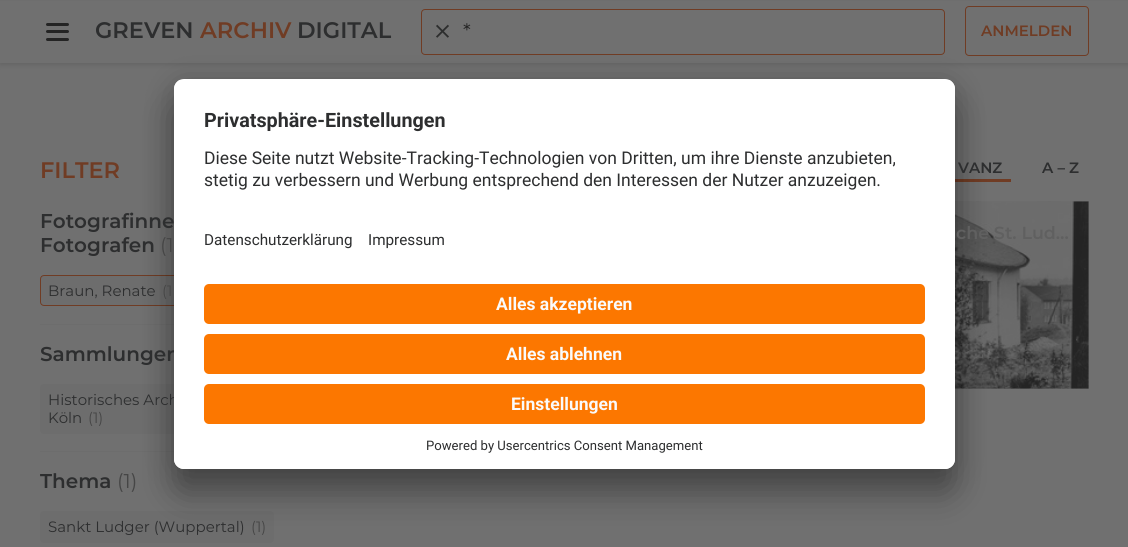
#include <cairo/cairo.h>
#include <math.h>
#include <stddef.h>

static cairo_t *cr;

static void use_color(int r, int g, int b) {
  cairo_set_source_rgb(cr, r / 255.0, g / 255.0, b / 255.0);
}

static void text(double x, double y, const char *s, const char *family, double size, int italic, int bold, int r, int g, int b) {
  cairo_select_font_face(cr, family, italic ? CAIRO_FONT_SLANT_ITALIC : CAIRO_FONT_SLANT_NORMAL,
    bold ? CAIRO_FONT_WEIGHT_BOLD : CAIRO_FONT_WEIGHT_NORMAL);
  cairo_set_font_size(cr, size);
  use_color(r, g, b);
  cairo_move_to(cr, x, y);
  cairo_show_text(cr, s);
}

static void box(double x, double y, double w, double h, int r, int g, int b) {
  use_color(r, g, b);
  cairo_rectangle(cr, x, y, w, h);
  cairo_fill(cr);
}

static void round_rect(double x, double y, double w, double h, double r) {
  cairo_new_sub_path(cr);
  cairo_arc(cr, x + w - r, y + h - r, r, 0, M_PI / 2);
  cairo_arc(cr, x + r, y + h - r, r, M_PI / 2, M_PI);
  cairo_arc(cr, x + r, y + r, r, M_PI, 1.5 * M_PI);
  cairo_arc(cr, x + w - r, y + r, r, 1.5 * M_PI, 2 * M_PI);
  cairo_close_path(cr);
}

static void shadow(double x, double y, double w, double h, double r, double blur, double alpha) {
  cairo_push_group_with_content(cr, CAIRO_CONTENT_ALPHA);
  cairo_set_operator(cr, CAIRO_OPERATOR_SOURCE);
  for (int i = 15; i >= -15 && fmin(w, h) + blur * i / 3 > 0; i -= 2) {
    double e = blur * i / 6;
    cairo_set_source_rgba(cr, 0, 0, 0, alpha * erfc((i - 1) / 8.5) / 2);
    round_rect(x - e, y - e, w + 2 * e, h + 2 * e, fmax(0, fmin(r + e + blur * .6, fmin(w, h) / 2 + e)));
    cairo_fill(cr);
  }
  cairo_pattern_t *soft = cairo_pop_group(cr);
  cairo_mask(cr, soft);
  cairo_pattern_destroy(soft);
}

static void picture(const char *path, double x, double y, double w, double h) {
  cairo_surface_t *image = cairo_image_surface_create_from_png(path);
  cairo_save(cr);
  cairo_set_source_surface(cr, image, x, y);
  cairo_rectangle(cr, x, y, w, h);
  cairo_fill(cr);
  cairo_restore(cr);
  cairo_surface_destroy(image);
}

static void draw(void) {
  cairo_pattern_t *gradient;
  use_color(112, 112, 112);
  cairo_paint(cr);
  use_color(51, 51, 51);
  shadow(0, 3, 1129, 62, 0, 2.5, 0.2);
  box(0, 1, 1128, 62, 112, 112, 112);
  use_color(36, 36, 36);
  round_rect(46, 23, 23, 3, 1.5);
  cairo_fill(cr);
  round_rect(46, 30, 23, 3, 1.5);
  cairo_fill(cr);
  round_rect(46, 38, 23, 3, 1.5);
  cairo_fill(cr);
  round_rect(421.5, 9.5, 523, 45, 3.5);
  use_color(112, 60, 36);
  cairo_set_line_width(cr, 1);
  cairo_stroke(cr);
  picture("img_01.png", 436, 24, 13, 14);
  round_rect(965.5, 6.5, 123, 49, 3.5);
  cairo_stroke(cr);
  box(40, 324, 134, 1, 109, 109, 109);
  round_rect(40.5, 275.5, 177, 30, 3.5);
  cairo_fill_preserve(cr);
  use_color(112, 60, 36);
  cairo_stroke(cr);
  box(40, 451, 134, 1, 109, 109, 109);
  round_rect(40, 384, 300, 50, 4);
  cairo_fill(cr);
  round_rect(40, 511, 234, 32, 4);
  cairo_fill(cr);
  box(955, 179, 56, 3, 112, 60, 36);
  gradient = cairo_pattern_create_linear(996, 482, 623, 108);
  cairo_pattern_add_color_stop_rgba(gradient, 0, 0.416, 0.416, 0.416, 1);
  cairo_pattern_add_color_stop_rgba(gradient, 1, 0.424, 0.424, 0.424, 1);
  cairo_set_source(cr, gradient);
  cairo_pattern_destroy(gradient);
  cairo_rectangle(cr, 955, 201, 134, 188);
  cairo_fill(cr);
  picture("img_02.png", 955, 201, 134, 188);
  use_color(0, 0, 0);
  shadow(174, 104, 781, 390, 10, 17.5, 0.3);
  shadow(174, 85, 781, 390, 10, 16, 0.22);
  text(95, 38, "GREVEN", "Montserrat SemiBold", 22.5, 0, 0, 45, 46, 47);
  text(200, 38, "ARCHIV", "Montserrat SemiBold", 22.5, 0, 0, 112, 60, 36);
  text(297, 38, "DIGITAL", "Montserrat SemiBold", 22.5, 0, 0, 45, 46, 47);
  text(463, 38, "*", "Montserrat", 20, 0, 0, 36, 36, 36);
  text(981, 36, "ANMELDEN", "Montserrat SemiBold", 15, 0, 0, 112, 60, 36);
  text(40, 178, "FILTER", "Montserrat SemiBold", 22.5, 0, 0, 112, 60, 36);
  text(40, 228, "Fotografinne", "Montserrat SemiBold", 20, 0, 0, 45, 46, 47);
  text(40, 252, "Fotografen", "Montserrat SemiBold", 20, 0, 0, 45, 46, 47);
  text(160, 252, "(1", "Montserrat", 20, 0, 0, 70, 70, 70);
  text(48, 296, "Braun, Renate", "Montserrat", 15, 0, 0, 45, 46, 47);
  text(162, 296, "(1", "Montserrat", 15, 0, 0, 70, 70, 70);
  text(40, 361, "Sammlungen", "Montserrat SemiBold", 20, 0, 0, 45, 46, 47);
  text(48, 405, "Historisches Arch", "Montserrat", 15, 0, 0, 45, 46, 47);
  use_color(255, 255, 255);
  round_rect(174, 79, 781, 390, 10);
  cairo_fill(cr);
  cairo_save(cr);
  round_rect(174, 79, 781, 390, 10);
  cairo_clip(cr);
  cairo_new_path(cr);
  cairo_move_to(cr, 184, 79);
  cairo_line_to(cr, 945, 79);
  cairo_curve_to(cr, 950.5, 79, 955, 83.5, 955, 89);
  cairo_line_to(cr, 955, 269);
  cairo_line_to(cr, 174, 269);
  cairo_line_to(cr, 174, 89);
  cairo_curve_to(cr, 174, 83.5, 178.5, 79, 184, 79);
  cairo_close_path(cr);
  cairo_clip(cr);
  box(174, 80, 781, 189, 255, 255, 255);
  cairo_restore(cr);
  text(368, 245, "Impressum", "Roboto", 15.25, 0, 0, 45, 46, 47);
  text(204, 245, "Datenschutzerklärung", "Roboto", 15.25, 0, 0, 45, 46, 47);
  text(204, 127, "Privatsphäre-Einstellungen", "Roboto", 19.75, 0, 1, 45, 46, 47);
  text(204, 186, "stetig zu verbessern und Werbung entsprechend den Interessen der Nutzer anzuzeigen.", "Roboto", 17.5, 0, 0, 45, 46, 47);
  text(204, 164, "Diese Seite nutzt Website-Tracking-Technologien von Dritten, um ihre Dienste anzubieten,", "Roboto", 17.5, 0, 0, 45, 46, 47);
  use_color(255, 255, 255);
  cairo_new_path(cr);
  cairo_move_to(cr, 174, 269);
  cairo_line_to(cr, 955, 269);
  cairo_line_to(cr, 955, 459);
  cairo_curve_to(cr, 955, 464.5, 950.5, 469, 945, 469);
  cairo_line_to(cr, 184, 469);
  cairo_curve_to(cr, 178.5, 469, 174, 464.5, 174, 459);
  cairo_close_path(cr);
  cairo_fill(cr);
  text(426, 450, "Powered by Usercentrics Consent Management", "Roboto", 13.1, 0, 0, 45, 46, 47);
  use_color(252, 119, 0);
  round_rect(204, 384, 721, 40, 5);
  cairo_fill(cr);
  text(511, 410, "Einstellungen", "Roboto", 17.5, 0, 1, 250, 250, 250);
  use_color(252, 119, 0);
  round_rect(204, 334, 721, 40, 5);
  cairo_fill(cr);
  text(506, 360, "Alles ablehnen", "Roboto", 17.5, 0, 1, 250, 250, 250);
  use_color(252, 119, 0);
  round_rect(204, 284, 721, 40, 5);
  cairo_fill(cr);
  text(496, 310, "Alles akzeptieren", "Roboto", 17.5, 0, 1, 250, 250, 250);
  text(48, 423, "Köln", "Montserrat", 15, 0, 0, 45, 46, 47);
  text(88, 423, "(1)", "Montserrat", 15, 0, 0, 70, 70, 70);
  text(40, 488, "Thema", "Montserrat SemiBold", 20, 0, 0, 45, 46, 47);
  text(117, 488, "(1)", "Montserrat", 20, 0, 0, 70, 70, 70);
  text(48, 532, "Sankt Ludger (Wuppertal)", "Montserrat", 15, 0, 0, 45, 46, 47);
  text(251, 532, "(1)", "Montserrat", 15, 0, 0, 70, 70, 70);
  text(958, 173, "VANZ", "Montserrat SemiBold", 15, 0, 0, 45, 46, 47);
  text(1042, 173, "A – Z", "Montserrat SemiBold", 15, 0, 0, 45, 46, 47);
  text(956, 239, "che St. Lud…", "Montserrat SemiBold", 17.5, 0, 0, 96, 96, 96);
}

int main(void) {
  cairo_surface_t *surface = cairo_image_surface_create(CAIRO_FORMAT_RGB24, 1128, 547);
  cr = cairo_create(surface);
  cairo_font_options_t *options = cairo_font_options_create();
  cairo_font_options_set_hint_metrics(options, CAIRO_HINT_METRICS_OFF);
  cairo_font_options_set_hint_style(options, CAIRO_HINT_STYLE_NONE);
  cairo_set_font_options(cr, options);
  cairo_set_miter_limit(cr, 4);
  draw();
  cairo_surface_write_to_png(surface, "out.png");
  cairo_font_options_destroy(options);
  cairo_destroy(cr);
  cairo_surface_destroy(surface);
  return 0;
}
